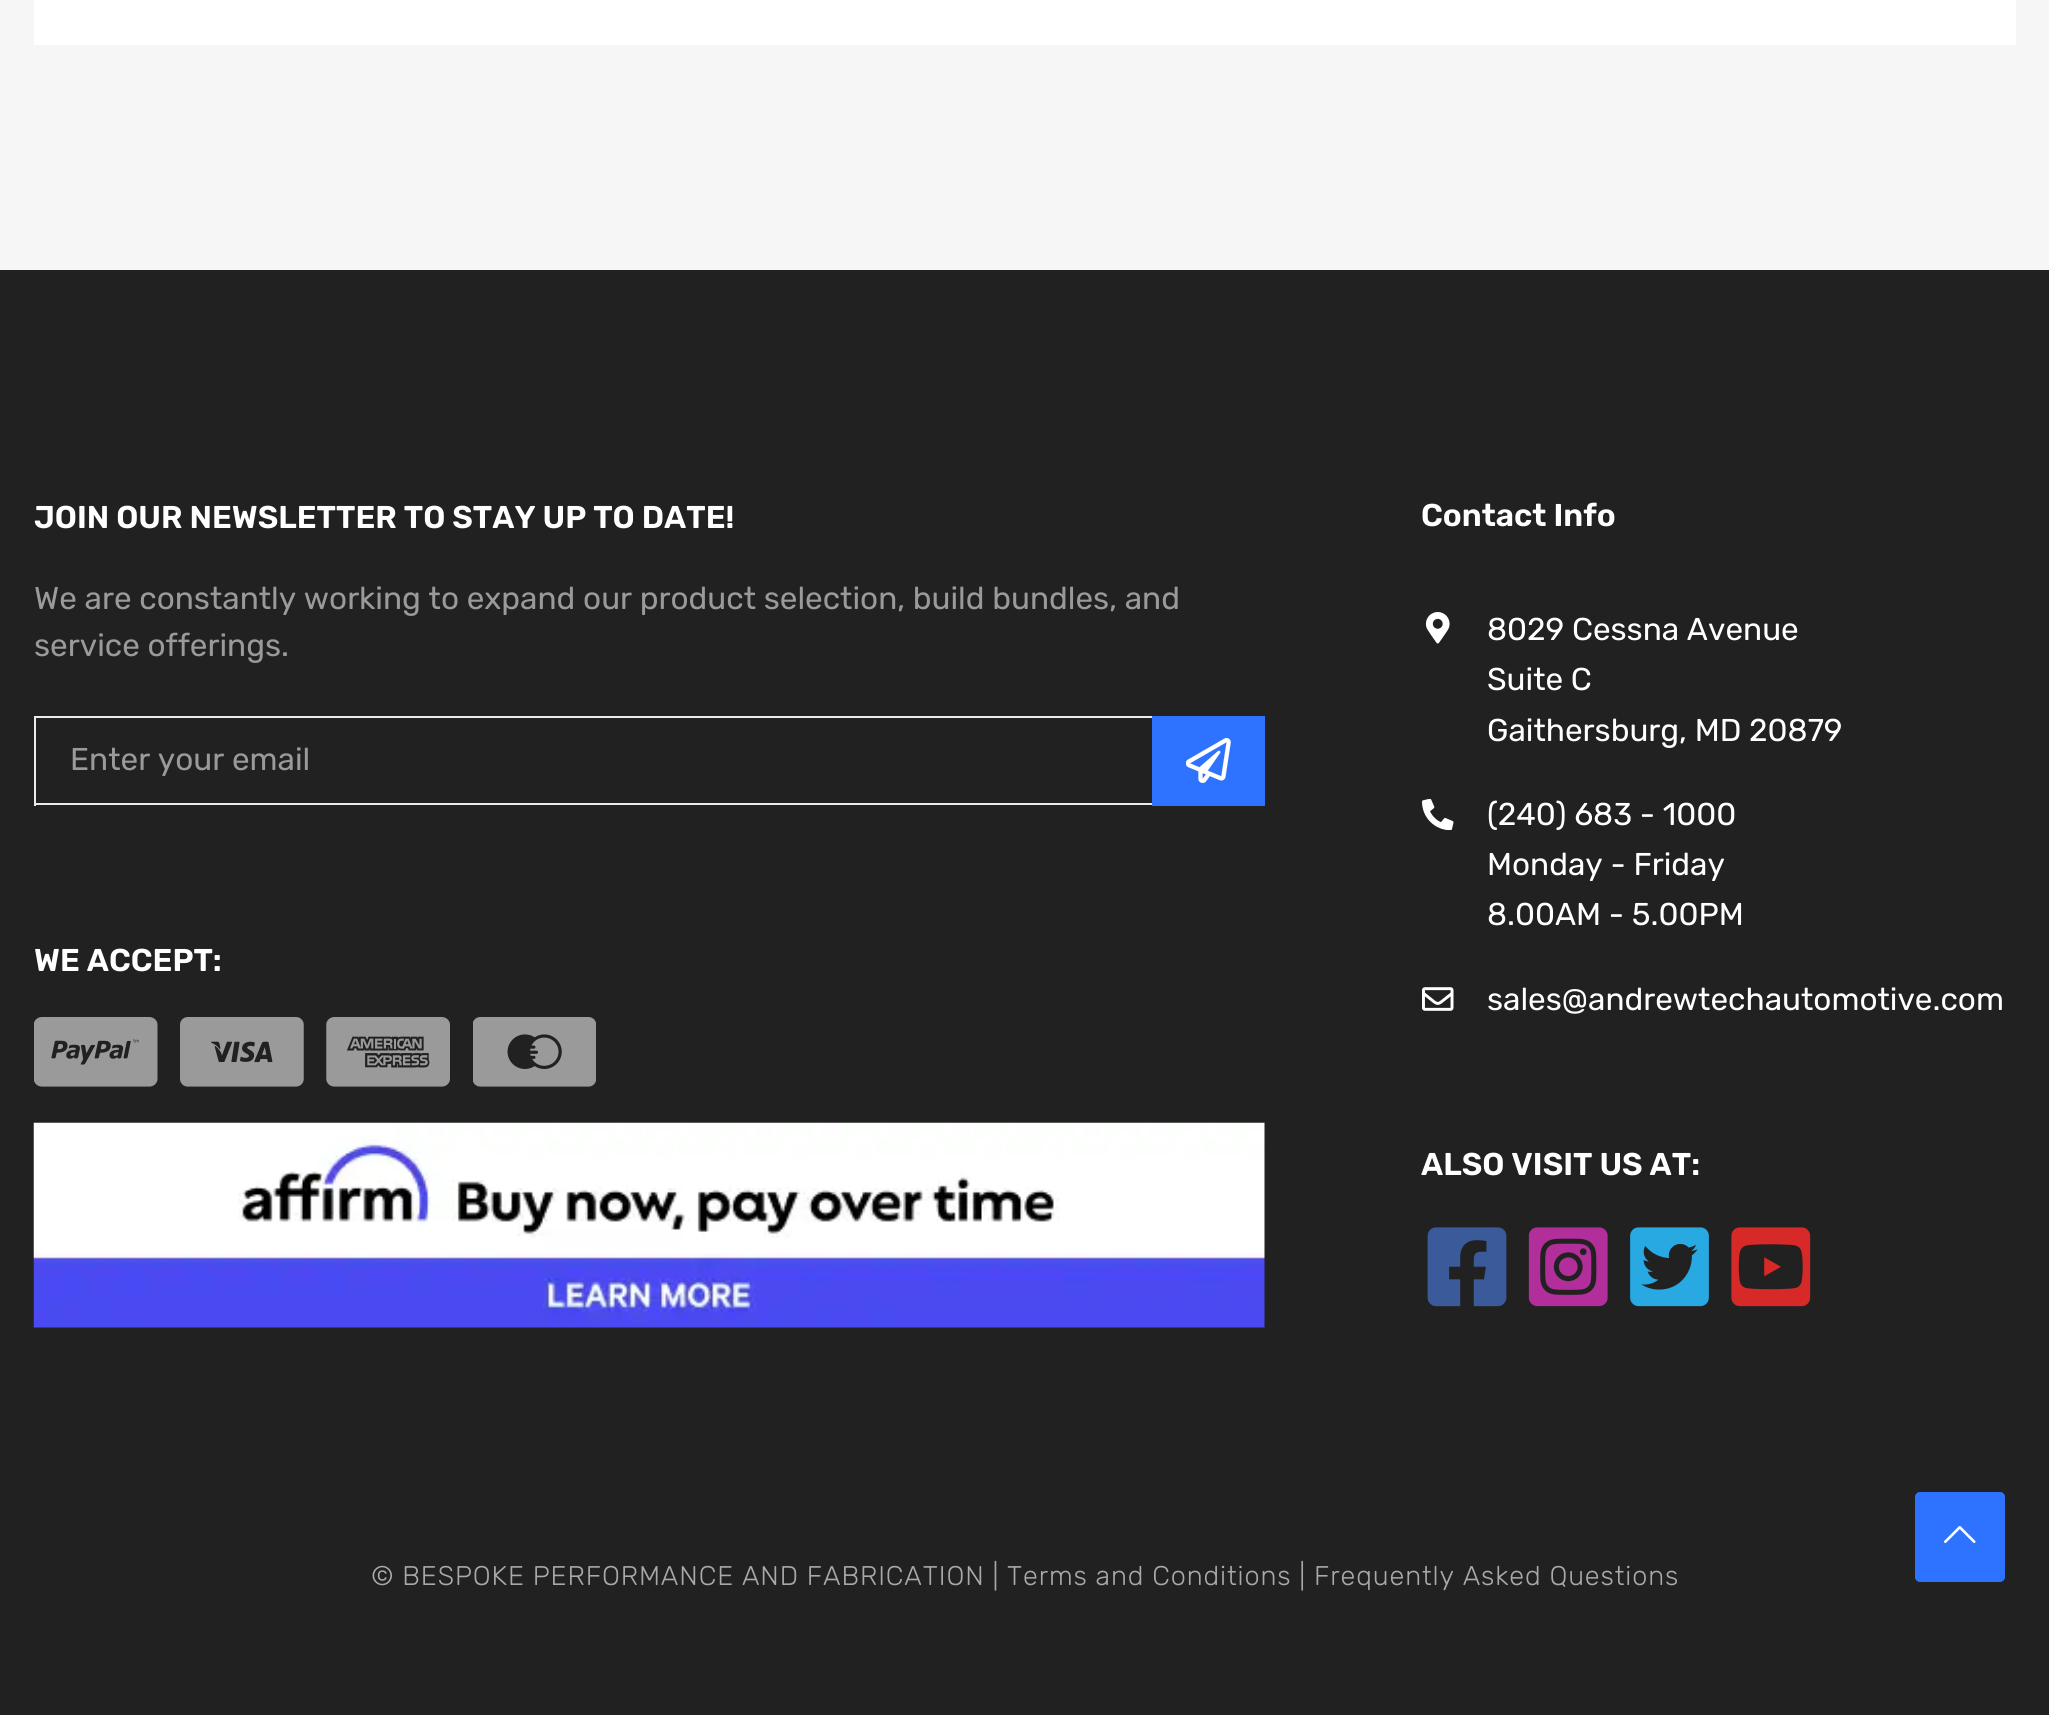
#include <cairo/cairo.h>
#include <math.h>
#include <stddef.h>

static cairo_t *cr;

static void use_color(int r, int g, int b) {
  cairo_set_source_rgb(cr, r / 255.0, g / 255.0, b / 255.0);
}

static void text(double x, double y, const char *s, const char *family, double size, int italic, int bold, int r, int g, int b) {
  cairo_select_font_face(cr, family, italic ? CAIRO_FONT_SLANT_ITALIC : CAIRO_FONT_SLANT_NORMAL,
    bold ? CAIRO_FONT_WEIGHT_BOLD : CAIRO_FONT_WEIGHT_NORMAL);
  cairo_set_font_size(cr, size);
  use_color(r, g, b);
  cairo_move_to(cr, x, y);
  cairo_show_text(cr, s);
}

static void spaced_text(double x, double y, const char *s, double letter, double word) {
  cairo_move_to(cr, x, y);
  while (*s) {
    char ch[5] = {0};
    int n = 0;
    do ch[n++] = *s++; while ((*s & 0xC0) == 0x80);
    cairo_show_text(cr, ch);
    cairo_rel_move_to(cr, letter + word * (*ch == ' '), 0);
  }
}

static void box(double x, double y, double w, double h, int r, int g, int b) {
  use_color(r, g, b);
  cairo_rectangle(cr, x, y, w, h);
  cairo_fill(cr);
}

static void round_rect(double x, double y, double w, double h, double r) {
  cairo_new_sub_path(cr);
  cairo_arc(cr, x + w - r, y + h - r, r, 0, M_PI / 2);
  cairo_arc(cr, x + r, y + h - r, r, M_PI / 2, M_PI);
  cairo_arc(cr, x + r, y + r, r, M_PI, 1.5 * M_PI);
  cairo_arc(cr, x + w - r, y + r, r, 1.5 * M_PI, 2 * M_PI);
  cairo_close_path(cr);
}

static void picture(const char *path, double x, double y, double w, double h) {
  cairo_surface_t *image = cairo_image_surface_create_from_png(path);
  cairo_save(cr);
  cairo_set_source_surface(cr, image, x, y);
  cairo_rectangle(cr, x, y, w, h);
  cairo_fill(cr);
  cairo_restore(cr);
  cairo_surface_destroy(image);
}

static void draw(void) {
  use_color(246, 246, 246);
  cairo_paint(cr);
  box(34, 0, 1982, 45, 255, 255, 255);
  box(0, 270, 2049, 1445, 33, 33, 33);
  box(34, 716, 1118, 2, 235, 235, 235);
  box(34, 803, 1118, 2, 235, 235, 235);
  box(34, 716, 2, 90, 235, 235, 235);
  box(1152, 716, 113, 90, 45, 115, 255);
  picture("img_01.png", 1186, 738, 45, 45);
  picture("img_02.png", 34, 1017, 124, 70);
  picture("img_03.png", 180, 1017, 124, 70);
  picture("img_04.png", 326, 1017, 124, 70);
  picture("img_05.png", 473, 1017, 123, 70);
  picture("img_06.png", 33, 1122, 1232, 206);
  picture("img_07.png", 1425, 612, 25, 32);
  picture("img_08.png", 1422, 799, 32, 31);
  picture("img_09.png", 1422, 987, 32, 24);
  picture("img_10.png", 1427, 1227, 80, 80);
  picture("img_11.png", 1528, 1227, 80, 80);
  picture("img_12.png", 1630, 1227, 79, 80);
  picture("img_13.png", 1731, 1227, 80, 80);
  round_rect(1915, 1492, 90, 90, 5);
  cairo_fill(cr);
  picture("img_14.png", 1944, 1526, 32, 17);
  text(34, 528, "JOIN OUR NEWSLETTER TO STAY UP TO DATE!", "Rubik SemiBold", 31.5, 0, 0, 255, 255, 255);
  text(34, 609, "We are constantly working to expand our product selection, build bundles, and", "Rubik", 31.5, 0, 0, 154, 154, 154);
  text(34, 656, "service offerings.", "Rubik", 31.5, 0, 0, 154, 154, 154);
  text(70, 770, "Enter your email", "Rubik", 31.5, 0, 0, 154, 154, 154);
  text(34, 971, "WE ACCEPT:", "Rubik SemiBold", 31.5, 0, 0, 255, 255, 255);
  text(1421, 526, "Contact Info", "Rubik SemiBold", 31.5, 0, 0, 255, 255, 255);
  text(1487, 640, "8029 Cessna Avenue", "Rubik", 31.5, 0, 0, 255, 255, 255);
  text(1487, 690, "Suite C", "Rubik", 31.5, 0, 0, 255, 255, 255);
  text(1487, 741, "Gaithersburg, MD 20879", "Rubik", 31.5, 0, 0, 255, 255, 255);
  text(1487, 825, "(240) 683 - 1000", "Rubik", 31.5, 0, 0, 255, 255, 255);
  text(1487, 875, "Monday - Friday", "Rubik", 31.5, 0, 0, 255, 255, 255);
  text(1487, 925, "8.00AM - 5.00PM", "Rubik", 31.5, 0, 0, 255, 255, 255);
  text(1487, 1010, "sales@andrewtechautomotive.com", "Rubik", 31.5, 0, 0, 255, 255, 255);
  text(1421, 1175, "ALSO VISIT US AT:", "Rubik SemiBold", 31.5, 0, 0, 255, 255, 255);
  cairo_select_font_face(cr, "Rubik Light", CAIRO_FONT_SLANT_NORMAL, CAIRO_FONT_WEIGHT_NORMAL);
  cairo_set_font_size(cr, 27);
  use_color(169, 169, 169);
  spaced_text(371, 1585, "© BESPOKE PERFORMANCE AND FABRICATION | Terms and Conditions | Frequently Asked Questions", 0.9, 0);
}

int main(void) {
  cairo_surface_t *surface = cairo_image_surface_create(CAIRO_FORMAT_RGB24, 2049, 1715);
  cr = cairo_create(surface);
  cairo_font_options_t *options = cairo_font_options_create();
  cairo_font_options_set_hint_metrics(options, CAIRO_HINT_METRICS_OFF);
  cairo_font_options_set_hint_style(options, CAIRO_HINT_STYLE_NONE);
  cairo_set_font_options(cr, options);
  cairo_set_miter_limit(cr, 4);
  draw();
  cairo_surface_write_to_png(surface, "out.png");
  cairo_font_options_destroy(options);
  cairo_destroy(cr);
  cairo_surface_destroy(surface);
  return 0;
}
